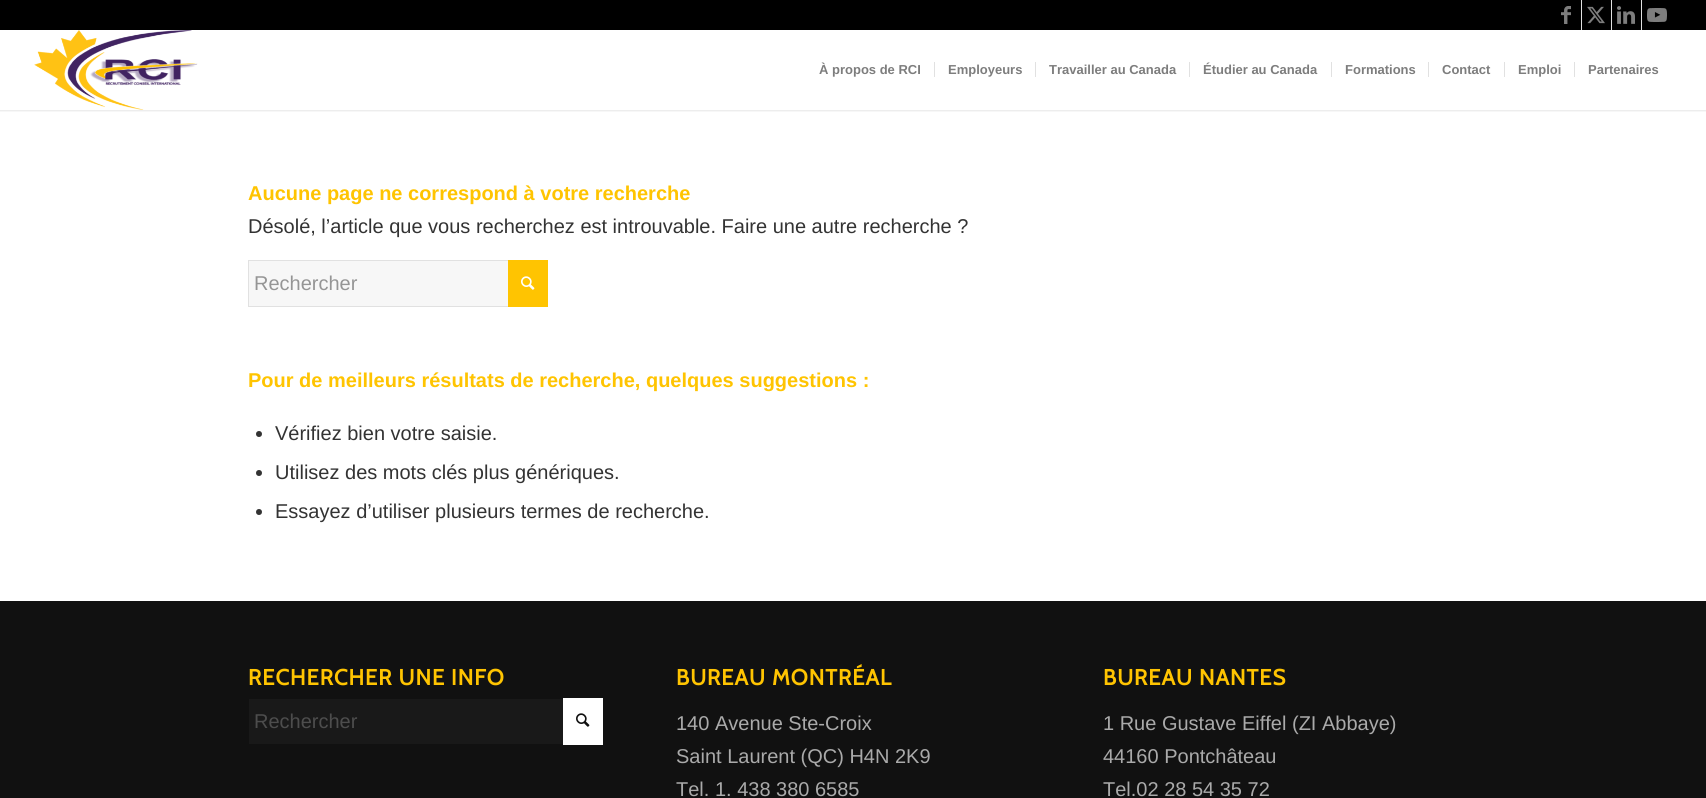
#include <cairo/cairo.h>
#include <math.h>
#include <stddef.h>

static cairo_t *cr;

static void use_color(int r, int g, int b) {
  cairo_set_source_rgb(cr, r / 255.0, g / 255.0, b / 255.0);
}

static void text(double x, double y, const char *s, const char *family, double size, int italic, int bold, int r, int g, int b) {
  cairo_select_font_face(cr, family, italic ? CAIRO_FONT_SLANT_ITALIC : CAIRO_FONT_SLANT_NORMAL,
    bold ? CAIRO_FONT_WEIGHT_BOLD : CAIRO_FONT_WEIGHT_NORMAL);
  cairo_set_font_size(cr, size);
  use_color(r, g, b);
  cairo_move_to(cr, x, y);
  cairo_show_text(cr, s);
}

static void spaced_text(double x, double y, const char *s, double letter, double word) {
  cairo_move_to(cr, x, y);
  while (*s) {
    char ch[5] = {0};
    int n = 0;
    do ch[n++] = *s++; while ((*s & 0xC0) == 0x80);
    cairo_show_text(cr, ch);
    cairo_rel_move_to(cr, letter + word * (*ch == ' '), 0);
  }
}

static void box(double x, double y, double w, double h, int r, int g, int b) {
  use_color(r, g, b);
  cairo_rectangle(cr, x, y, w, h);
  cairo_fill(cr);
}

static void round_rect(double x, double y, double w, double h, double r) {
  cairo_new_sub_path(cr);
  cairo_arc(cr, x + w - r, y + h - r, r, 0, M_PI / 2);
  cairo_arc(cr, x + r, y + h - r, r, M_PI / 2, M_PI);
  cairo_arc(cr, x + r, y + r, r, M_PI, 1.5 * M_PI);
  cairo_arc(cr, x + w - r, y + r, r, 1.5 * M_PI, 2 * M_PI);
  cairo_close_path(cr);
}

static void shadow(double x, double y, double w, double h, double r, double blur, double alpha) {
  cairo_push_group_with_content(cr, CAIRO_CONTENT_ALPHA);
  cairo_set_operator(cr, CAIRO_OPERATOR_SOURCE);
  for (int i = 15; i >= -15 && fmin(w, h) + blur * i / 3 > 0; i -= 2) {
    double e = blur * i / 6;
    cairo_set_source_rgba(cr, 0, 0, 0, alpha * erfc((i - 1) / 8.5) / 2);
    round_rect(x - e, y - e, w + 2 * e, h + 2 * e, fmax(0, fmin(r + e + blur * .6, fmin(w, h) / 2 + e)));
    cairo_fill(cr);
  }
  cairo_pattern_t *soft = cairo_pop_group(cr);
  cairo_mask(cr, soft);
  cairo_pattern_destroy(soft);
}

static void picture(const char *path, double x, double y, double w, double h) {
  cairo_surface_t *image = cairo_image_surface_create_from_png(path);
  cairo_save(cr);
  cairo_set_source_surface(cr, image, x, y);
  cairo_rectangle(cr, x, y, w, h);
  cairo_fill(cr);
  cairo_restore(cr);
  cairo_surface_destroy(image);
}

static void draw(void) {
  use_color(255, 255, 255);
  cairo_paint(cr);
  cairo_save(cr);
  cairo_rectangle(cr, 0, 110, 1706, 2);
  cairo_clip(cr);
  use_color(0, 0, 0);
  shadow(-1, -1, 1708, 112, 0, 1, 0.1);
  cairo_restore(cr);
  box(0, 0, 1706, 30, 0, 0, 0);
  box(1581, 0, 1, 30, 225, 225, 225);
  picture("img_01.png", 1561, 6, 10, 18);
  box(1611, 0, 1, 30, 225, 225, 225);
  picture("img_02.png", 1587, 6, 18, 18);
  box(1641, 0, 1, 30, 225, 225, 225);
  picture("img_03.png", 1617, 6, 18, 18);
  picture("img_04.png", 1647, 8, 20, 14);
  picture("img_05.png", 34, 30, 164, 80);
  box(934, 62, 1, 15, 225, 225, 225);
  box(1035, 62, 1, 15, 225, 225, 225);
  box(1189, 62, 1, 15, 225, 225, 225);
  box(1331, 62, 1, 15, 225, 225, 225);
  box(1428, 62, 1, 15, 225, 225, 225);
  box(1504, 62, 1, 15, 225, 225, 225);
  box(1574, 62, 1, 15, 225, 225, 225);
  box(249, 261, 259, 45, 247, 247, 247);
  cairo_rectangle(cr, 248.5, 260.5, 299, 46);
  use_color(225, 225, 225);
  cairo_set_line_width(cr, 1);
  cairo_stroke(cr);
  box(508, 260, 40, 47, 255, 196, 1);
  picture("img_06.png", 521, 276, 14, 14);
  use_color(51, 51, 51);
  cairo_arc(cr, 259, 434, 3, 0, 2 * M_PI);
  cairo_fill(cr);
  cairo_arc(cr, 259, 473, 3, 0, 2 * M_PI);
  cairo_fill(cr);
  cairo_arc(cr, 259, 512, 3, 0, 2 * M_PI);
  cairo_fill(cr);
  box(0, 601, 1706, 197, 17, 17, 17);
  box(249, 699, 314, 45, 25, 25, 25);
  box(563, 698, 40, 47, 255, 255, 255);
  picture("img_07.png", 576, 713, 14, 14);
  text(819, 74, "À propos de RCI", "Liberation Sans", 13, 0, 1, 125, 125, 125);
  text(948, 74, "Employeurs", "Liberation Sans", 13, 0, 1, 125, 125, 125);
  text(1049, 74, "Travailler au Canada", "Liberation Sans", 13, 0, 1, 125, 125, 125);
  text(1203, 74, "Étudier au Canada", "Liberation Sans", 13, 0, 1, 125, 125, 125);
  text(1345, 74, "Formations", "Liberation Sans", 13, 0, 1, 125, 125, 125);
  text(1442, 74, "Contact", "Liberation Sans", 13, 0, 1, 125, 125, 125);
  text(1518, 74, "Emploi", "Liberation Sans", 13, 0, 1, 125, 125, 125);
  text(1588, 74, "Partenaires", "Liberation Sans", 13, 0, 1, 125, 125, 125);
  text(248, 200, "Aucune page ne correspond à votre recherche", "Liberation Sans", 20, 0, 1, 255, 196, 1);
  text(248, 233, "Désolé, l’article que vous recherchez est introuvable. Faire une autre recherche ?", "Liberation Sans", 20, 0, 0, 51, 51, 51);
  text(254, 290, "Rechercher", "Liberation Sans", 20, 0, 0, 149, 149, 149);
  text(248, 387, "Pour de meilleurs résultats de recherche, quelques suggestions :", "Liberation Sans", 20, 0, 1, 255, 196, 1);
  text(275, 440, "Vérifiez bien votre saisie.", "Liberation Sans", 20, 0, 0, 51, 51, 51);
  text(275, 479, "Utilisez des mots clés plus génériques.", "Liberation Sans", 20, 0, 0, 51, 51, 51);
  text(275, 518, "Essayez d’utiliser plusieurs termes de recherche.", "Liberation Sans", 20, 0, 0, 51, 51, 51);
  cairo_select_font_face(cr, "Cabin", CAIRO_FONT_SLANT_NORMAL, CAIRO_FONT_WEIGHT_BOLD);
  cairo_set_font_size(cr, 22);
  use_color(255, 196, 1);
  spaced_text(248, 685, "RECHERCHER UNE INFO", 1, 0);
  text(254, 728, "Rechercher", "Liberation Sans", 20, 0, 0, 77, 77, 77);
  cairo_select_font_face(cr, "Cabin", CAIRO_FONT_SLANT_NORMAL, CAIRO_FONT_WEIGHT_BOLD);
  cairo_set_font_size(cr, 22);
  use_color(255, 196, 1);
  spaced_text(676, 685, "BUREAU MONTRÉAL", 1, 0);
  text(676, 730, "140 Avenue Ste-Croix", "Liberation Sans", 20, 0, 0, 170, 170, 170);
  text(676, 763, "Saint Laurent (QC) H4N 2K9", "Liberation Sans", 20, 0, 0, 170, 170, 170);
  text(676, 796, "Tel. 1. 438 380 6585", "Liberation Sans", 20, 0, 0, 170, 170, 170);
  cairo_select_font_face(cr, "Cabin", CAIRO_FONT_SLANT_NORMAL, CAIRO_FONT_WEIGHT_BOLD);
  cairo_set_font_size(cr, 22);
  use_color(255, 196, 1);
  spaced_text(1103, 685, "BUREAU NANTES", 1, 0);
  text(1103, 730, "1 Rue Gustave Eiffel (ZI Abbaye)", "Liberation Sans", 20, 0, 0, 170, 170, 170);
  text(1103, 763, "44160 Pontchâteau", "Liberation Sans", 20, 0, 0, 170, 170, 170);
  text(1103, 796, "Tel.02 28 54 35 72", "Liberation Sans", 20, 0, 0, 170, 170, 170);
}

int main(void) {
  cairo_surface_t *surface = cairo_image_surface_create(CAIRO_FORMAT_RGB24, 1706, 798);
  cr = cairo_create(surface);
  cairo_font_options_t *options = cairo_font_options_create();
  cairo_font_options_set_hint_metrics(options, CAIRO_HINT_METRICS_OFF);
  cairo_font_options_set_hint_style(options, CAIRO_HINT_STYLE_NONE);
  cairo_set_font_options(cr, options);
  cairo_set_miter_limit(cr, 4);
  draw();
  cairo_surface_write_to_png(surface, "out.png");
  cairo_font_options_destroy(options);
  cairo_destroy(cr);
  cairo_surface_destroy(surface);
  return 0;
}
